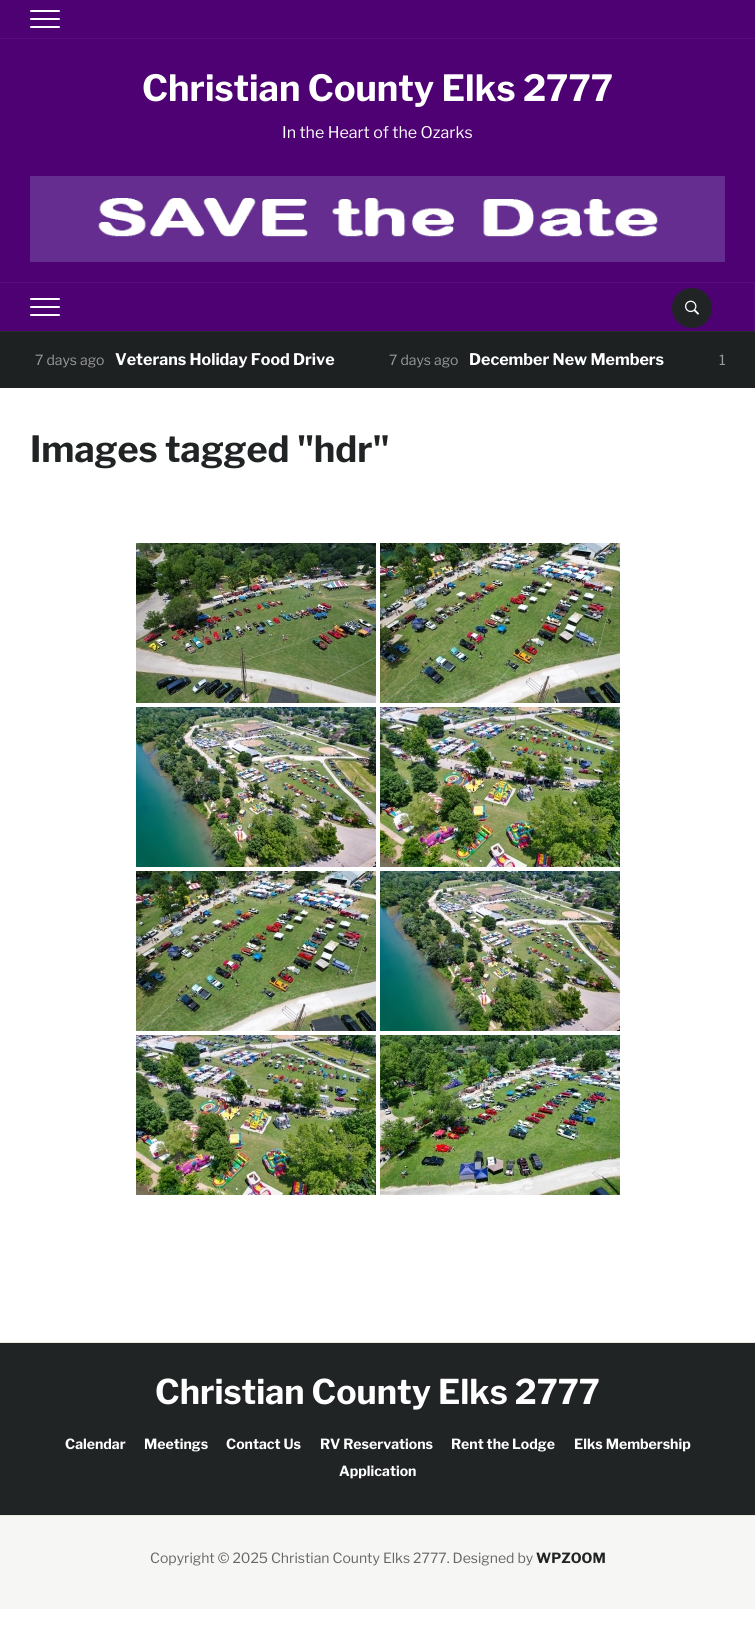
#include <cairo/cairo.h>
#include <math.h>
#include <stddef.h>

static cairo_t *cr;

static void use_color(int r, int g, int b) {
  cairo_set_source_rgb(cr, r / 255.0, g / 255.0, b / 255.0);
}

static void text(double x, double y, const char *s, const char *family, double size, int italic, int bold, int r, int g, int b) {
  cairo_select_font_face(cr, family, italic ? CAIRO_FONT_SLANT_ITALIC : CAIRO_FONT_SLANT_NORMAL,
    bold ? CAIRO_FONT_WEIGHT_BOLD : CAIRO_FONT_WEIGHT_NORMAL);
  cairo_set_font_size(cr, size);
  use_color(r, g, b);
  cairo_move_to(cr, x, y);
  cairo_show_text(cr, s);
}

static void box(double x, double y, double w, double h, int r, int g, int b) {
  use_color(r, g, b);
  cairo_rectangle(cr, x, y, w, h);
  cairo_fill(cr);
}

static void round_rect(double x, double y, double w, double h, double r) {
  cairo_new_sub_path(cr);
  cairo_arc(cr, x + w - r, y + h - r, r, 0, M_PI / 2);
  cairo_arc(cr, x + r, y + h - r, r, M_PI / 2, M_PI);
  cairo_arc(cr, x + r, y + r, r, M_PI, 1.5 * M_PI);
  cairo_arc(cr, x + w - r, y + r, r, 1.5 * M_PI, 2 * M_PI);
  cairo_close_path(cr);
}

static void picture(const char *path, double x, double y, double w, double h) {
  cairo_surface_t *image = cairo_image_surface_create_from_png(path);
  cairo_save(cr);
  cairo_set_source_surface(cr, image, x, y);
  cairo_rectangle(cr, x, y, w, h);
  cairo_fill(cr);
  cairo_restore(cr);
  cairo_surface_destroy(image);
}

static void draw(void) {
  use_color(255, 255, 255);
  cairo_paint(cr);
  box(0, 0, 755, 331, 78, 1, 114);
  box(0, 38, 755, 1, 87, 14, 121);
  use_color(255, 255, 255);
  round_rect(30, 10, 30, 2, 1);
  cairo_fill(cr);
  round_rect(30, 18, 30, 2, 1);
  cairo_fill(cr);
  round_rect(30, 26, 30, 2, 1);
  cairo_fill(cr);
  picture("img_01.png", 30, 176, 695, 86);
  box(0, 282, 755, 1, 87, 14, 121);
  box(754, 283, 1, 48, 87, 14, 121);
  use_color(255, 255, 255);
  round_rect(30, 298, 30, 2, 1);
  cairo_fill(cr);
  round_rect(30, 306, 30, 2, 1);
  cairo_fill(cr);
  round_rect(30, 314, 30, 2, 1);
  cairo_fill(cr);
  use_color(33, 36, 37);
  cairo_arc(cr, 692, 308, 20, 0, 2 * M_PI);
  cairo_fill(cr);
  picture("img_02.png", 685, 300, 14, 15);
  box(0, 332, 755, 56, 30, 33, 34);
  box(0, 331, 755, 1, 41, 44, 45);
  picture("img_03.png", 136, 543, 240, 160);
  picture("img_04.png", 380, 543, 240, 160);
  picture("img_05.png", 136, 707, 240, 160);
  picture("img_06.png", 380, 707, 240, 160);
  picture("img_07.png", 136, 871, 240, 160);
  picture("img_08.png", 380, 871, 240, 160);
  picture("img_09.png", 136, 1035, 240, 160);
  picture("img_10.png", 380, 1035, 240, 160);
  box(0, 1516, 755, 93, 246, 246, 244);
  box(0, 1342, 755, 1, 232, 232, 223);
  box(0, 1343, 755, 172, 33, 36, 37);
  box(0, 1515, 755, 1, 232, 232, 223);
  text(142, 101, "Christian County Elks 2777", "Libre Franklin", 36, 0, 1, 255, 255, 255);
  text(282, 138, "In the Heart of the Ozarks", "Libre Franklin", 16, 0, 0, 255, 255, 255);
  text(35, 365, "7 days ago", "Libre Franklin", 14, 0, 0, 153, 153, 153);
  text(115, 365, "Veterans Holiday Food Drive", "Libre Franklin", 16, 0, 1, 255, 255, 255);
  text(389, 365, "7 days ago", "Libre Franklin", 14, 0, 0, 153, 153, 153);
  text(469, 365, "December New Members", "Libre Franklin", 16, 0, 1, 255, 255, 255);
  text(719, 365, "1", "Libre Franklin", 14, 0, 0, 153, 153, 153);
  text(30, 462, "Images tagged \"hdr\"", "Libre Franklin", 36, 0, 1, 33, 36, 37);
  text(155, 1404, "Christian County Elks 2777", "Libre Franklin", 34, 0, 1, 255, 255, 255);
  text(65, 1449, "Calendar", "Libre Franklin", 14, 0, 1, 255, 255, 255);
  text(144, 1449, "Meetings", "Libre Franklin", 14, 0, 1, 255, 255, 255);
  text(226, 1449, "Contact Us", "Libre Franklin", 14, 0, 1, 255, 255, 255);
  text(320, 1449, "RV Reservations", "Libre Franklin", 14, 0, 1, 255, 255, 255);
  text(451, 1449, "Rent the Lodge", "Libre Franklin", 14, 0, 1, 255, 255, 255);
  text(574, 1449, "Elks Membership", "Libre Franklin", 14, 0, 1, 255, 255, 255);
  text(339, 1476, "Application", "Libre Franklin", 14, 0, 1, 255, 255, 255);
  text(150, 1563, "Copyright © 2025 Christian County Elks 2777. Designed by", "Libre Franklin", 14, 0, 0, 102, 102, 102);
  text(536, 1563, "WPZOOM", "Libre Franklin", 14, 0, 1, 33, 36, 37);
}

int main(void) {
  cairo_surface_t *surface = cairo_image_surface_create(CAIRO_FORMAT_RGB24, 755, 1636);
  cr = cairo_create(surface);
  cairo_font_options_t *options = cairo_font_options_create();
  cairo_font_options_set_hint_metrics(options, CAIRO_HINT_METRICS_OFF);
  cairo_font_options_set_hint_style(options, CAIRO_HINT_STYLE_NONE);
  cairo_set_font_options(cr, options);
  cairo_set_miter_limit(cr, 4);
  draw();
  cairo_surface_write_to_png(surface, "out.png");
  cairo_font_options_destroy(options);
  cairo_destroy(cr);
  cairo_surface_destroy(surface);
  return 0;
}
